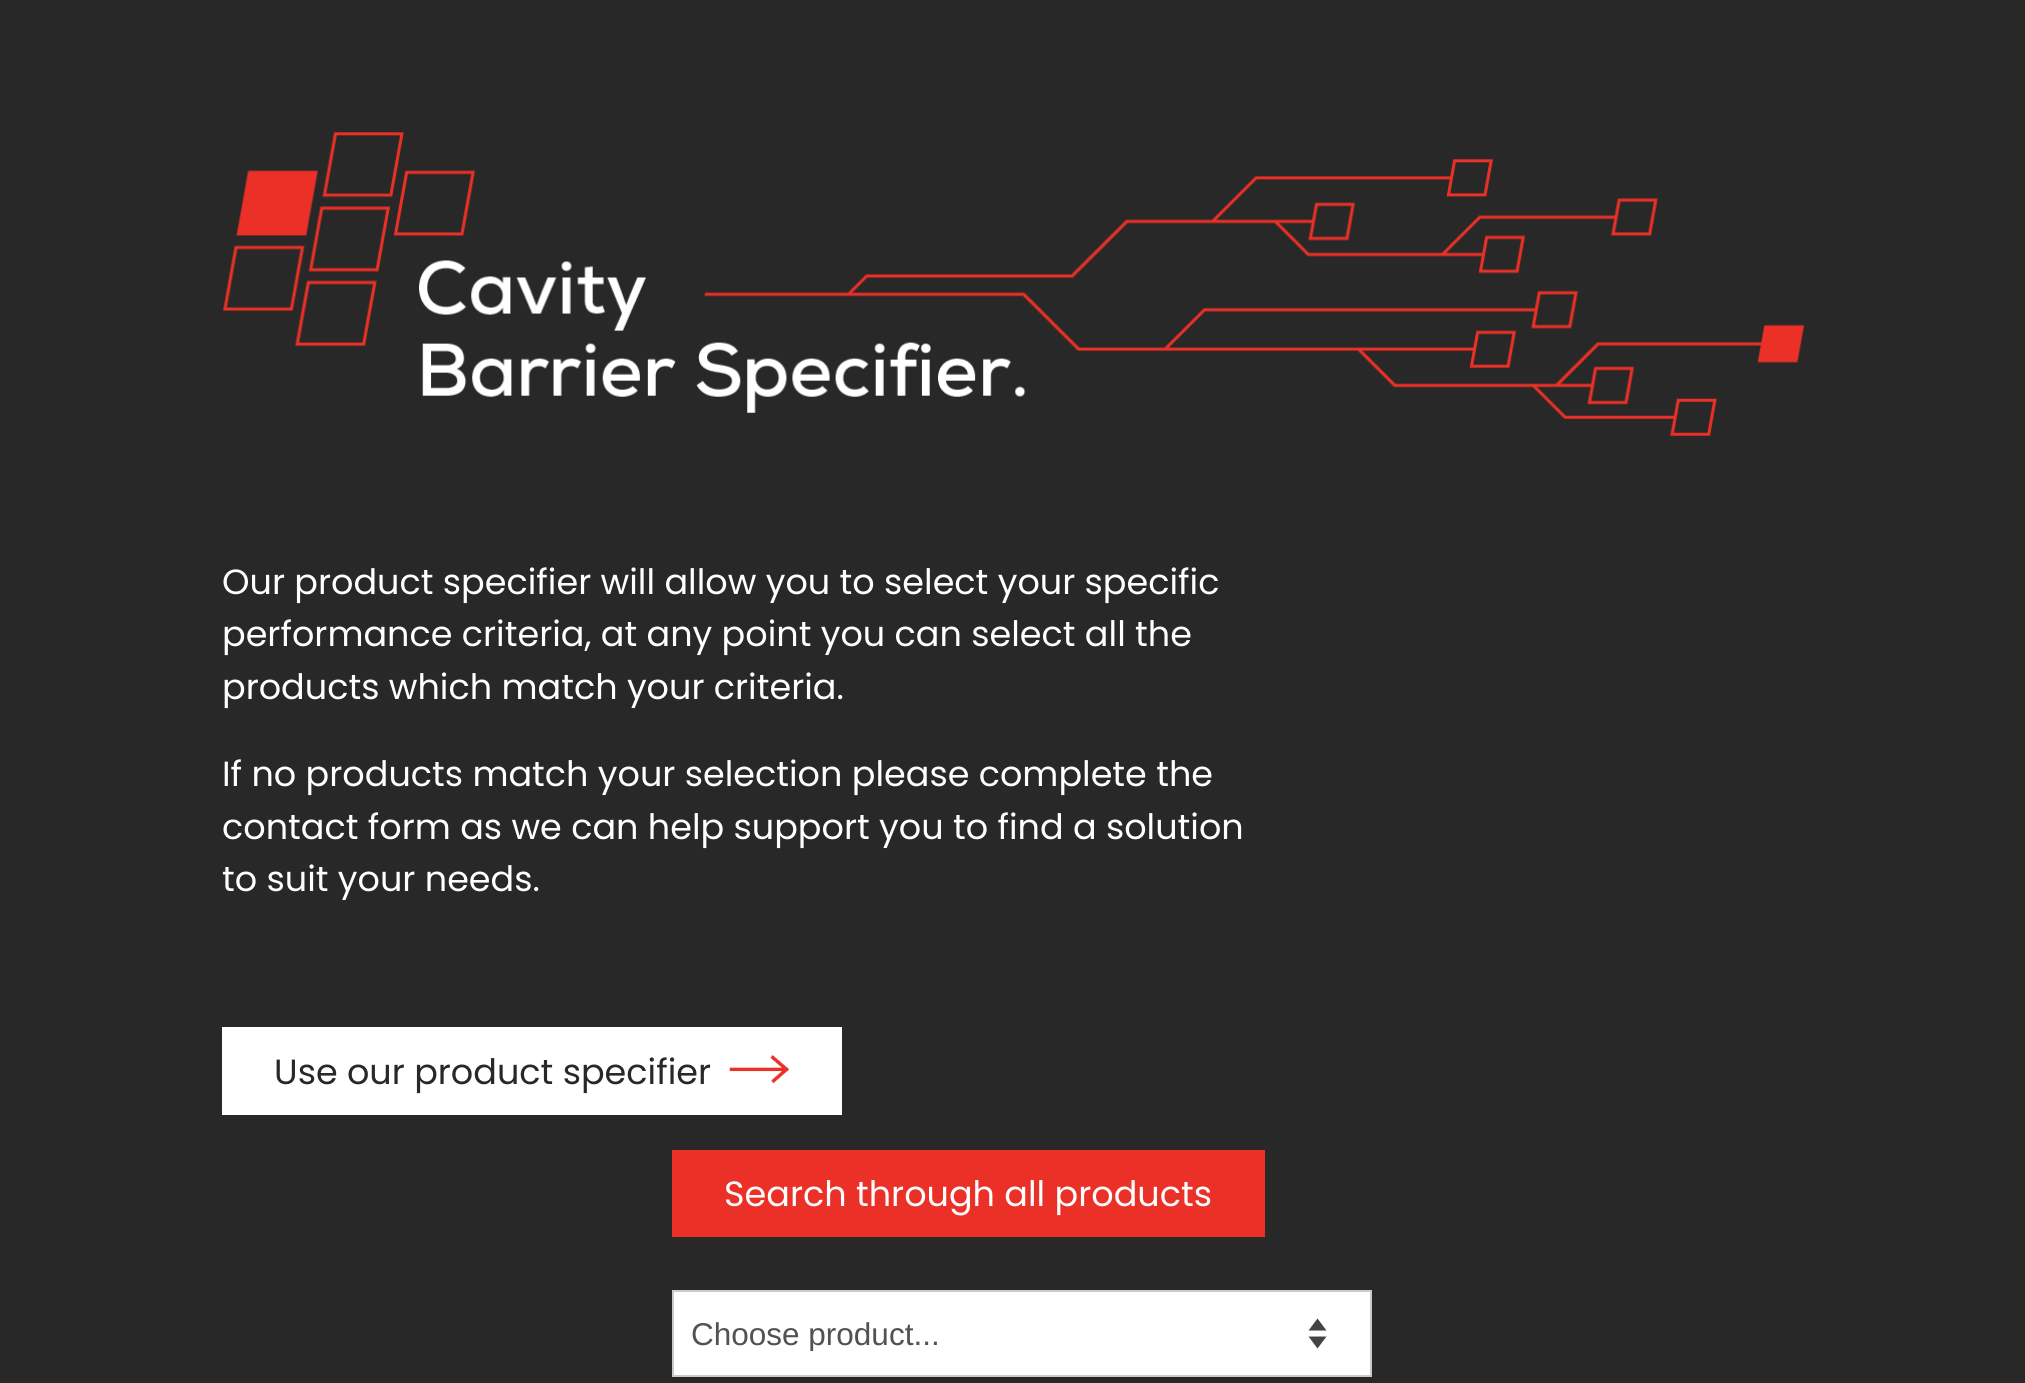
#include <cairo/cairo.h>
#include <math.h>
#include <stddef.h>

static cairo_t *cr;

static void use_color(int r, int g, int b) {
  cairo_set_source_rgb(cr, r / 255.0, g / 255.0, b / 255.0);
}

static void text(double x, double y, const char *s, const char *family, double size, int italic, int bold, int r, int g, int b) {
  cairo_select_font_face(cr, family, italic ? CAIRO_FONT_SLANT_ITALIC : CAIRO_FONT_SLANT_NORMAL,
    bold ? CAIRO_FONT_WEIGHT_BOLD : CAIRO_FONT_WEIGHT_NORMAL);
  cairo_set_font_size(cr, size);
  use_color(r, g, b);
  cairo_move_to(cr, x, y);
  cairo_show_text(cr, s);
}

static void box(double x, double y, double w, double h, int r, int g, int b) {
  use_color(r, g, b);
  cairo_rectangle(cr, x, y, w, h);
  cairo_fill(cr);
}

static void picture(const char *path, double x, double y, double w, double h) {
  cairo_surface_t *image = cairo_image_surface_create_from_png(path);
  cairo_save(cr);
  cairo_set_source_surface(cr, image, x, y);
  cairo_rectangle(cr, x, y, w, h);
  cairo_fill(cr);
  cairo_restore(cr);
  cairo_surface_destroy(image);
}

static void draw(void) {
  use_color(40, 40, 40);
  cairo_paint(cr);
  picture("img_01.png", 223, 132, 1582, 304);
  box(222, 1027, 620, 88, 255, 255, 255);
  picture("img_02.png", 729, 1055, 61, 29);
  box(672, 1150, 593, 87, 235, 49, 39);
  box(674, 1292, 696, 83, 255, 255, 255);
  use_color(68, 68, 68);
  cairo_new_path(cr);
  cairo_move_to(cr, 1308.5, 1330.5);
  cairo_line_to(cr, 1317.5, 1318.5);
  cairo_line_to(cr, 1326.5, 1330.5);
  cairo_close_path(cr);
  cairo_move_to(cr, 1326.5, 1336.5);
  cairo_line_to(cr, 1317.5, 1348.5);
  cairo_line_to(cr, 1308.5, 1336.5);
  cairo_close_path(cr);
  cairo_fill(cr);
  cairo_rectangle(cr, 673, 1291, 698, 85);
  use_color(202, 202, 202);
  cairo_stroke(cr);
  text(222, 594, "Our product specifier will allow you to select your specific", "Poppins", 35, 0, 0, 255, 255, 255);
  text(222, 646, "performance criteria, at any point you can select all the", "Poppins", 35, 0, 0, 255, 255, 255);
  text(222, 699, "products which match your criteria.", "Poppins", 35, 0, 0, 255, 255, 255);
  text(222, 786, "If no products match your selection please complete the", "Poppins", 35, 0, 0, 255, 255, 255);
  text(222, 839, "contact form as we can help support you to find a solution", "Poppins", 35, 0, 0, 255, 255, 255);
  text(222, 891, "to suit your needs.", "Poppins", 35, 0, 0, 255, 255, 255);
  text(274, 1084, "Use our product specifier", "Poppins", 35, 0, 0, 40, 40, 40);
  text(724, 1206, "Search through all products", "Poppins", 35, 0, 0, 255, 255, 255);
  cairo_save(cr);
  cairo_rectangle(cr, 691, 1316, 662, 35);
  cairo_clip(cr);
  text(691, 1345, "Choose product...", "Liberation Sans", 31.5, 0, 0, 82, 82, 82);
  cairo_restore(cr);
}

int main(void) {
  cairo_surface_t *surface = cairo_image_surface_create(CAIRO_FORMAT_RGB24, 2025, 1383);
  cr = cairo_create(surface);
  cairo_font_options_t *options = cairo_font_options_create();
  cairo_font_options_set_hint_metrics(options, CAIRO_HINT_METRICS_OFF);
  cairo_font_options_set_hint_style(options, CAIRO_HINT_STYLE_NONE);
  cairo_set_font_options(cr, options);
  cairo_set_miter_limit(cr, 4);
  draw();
  cairo_surface_write_to_png(surface, "out.png");
  cairo_font_options_destroy(options);
  cairo_destroy(cr);
  cairo_surface_destroy(surface);
  return 0;
}
